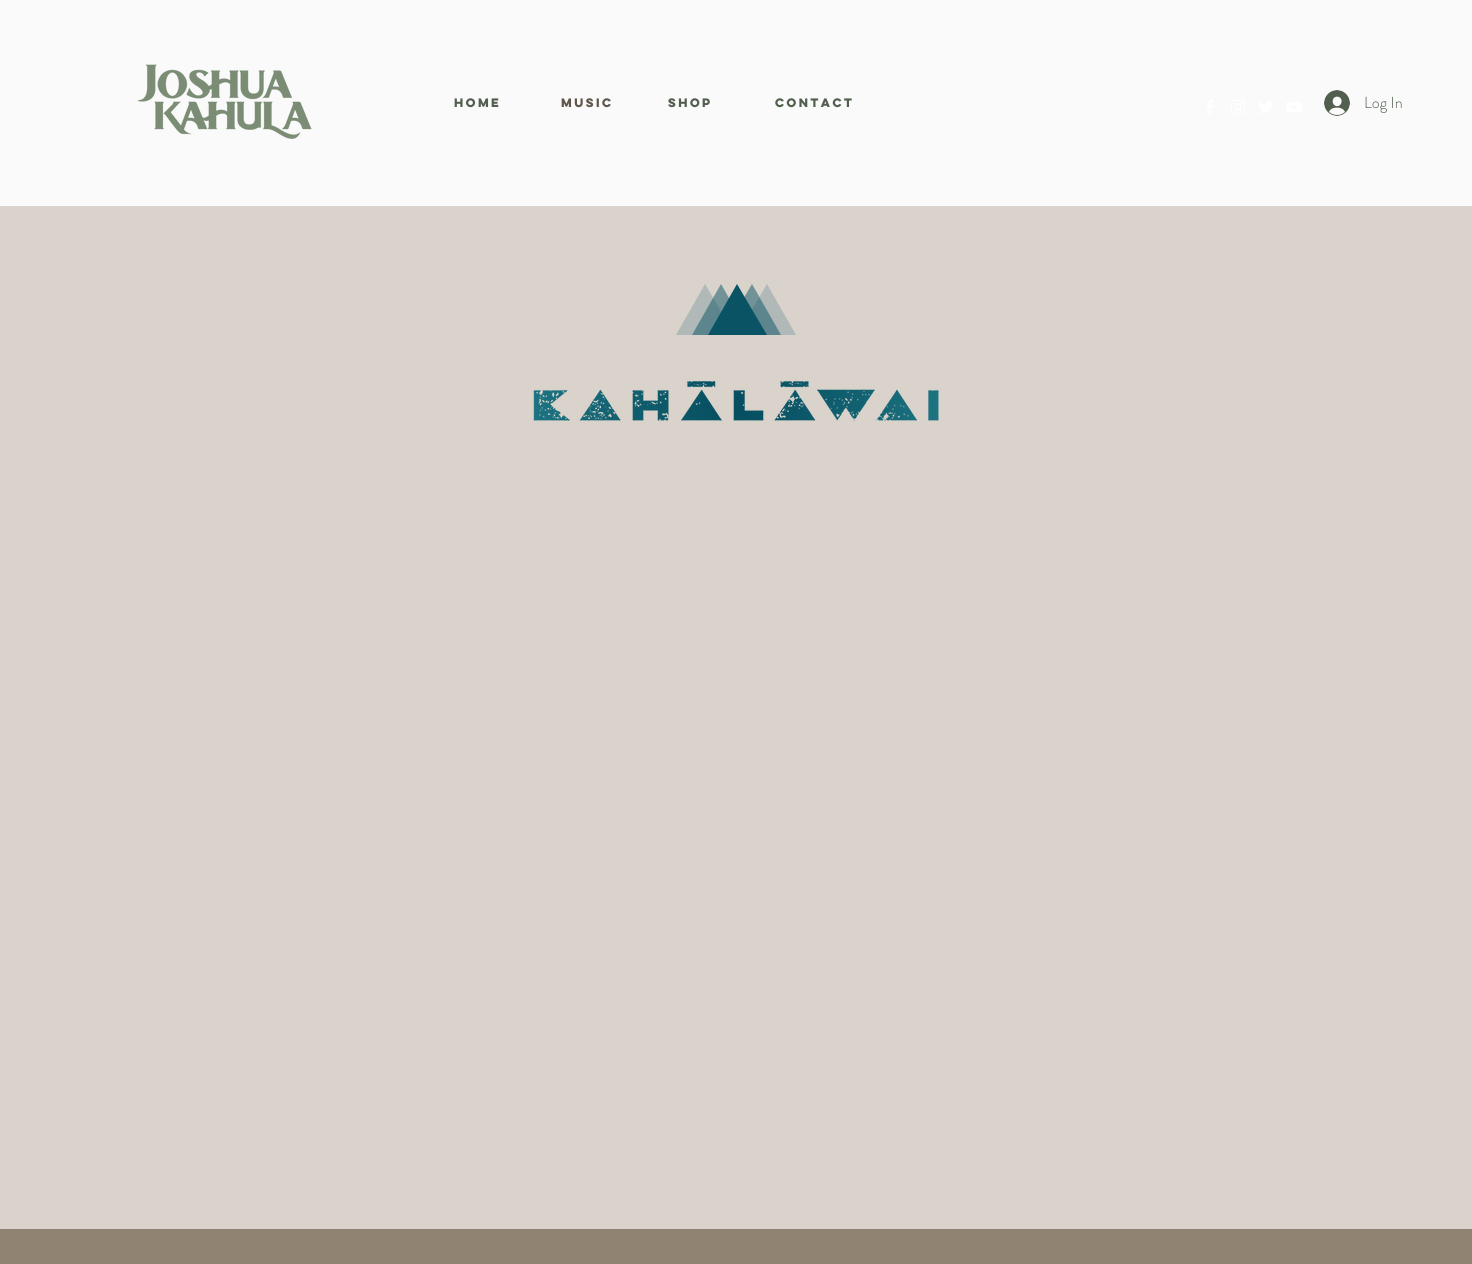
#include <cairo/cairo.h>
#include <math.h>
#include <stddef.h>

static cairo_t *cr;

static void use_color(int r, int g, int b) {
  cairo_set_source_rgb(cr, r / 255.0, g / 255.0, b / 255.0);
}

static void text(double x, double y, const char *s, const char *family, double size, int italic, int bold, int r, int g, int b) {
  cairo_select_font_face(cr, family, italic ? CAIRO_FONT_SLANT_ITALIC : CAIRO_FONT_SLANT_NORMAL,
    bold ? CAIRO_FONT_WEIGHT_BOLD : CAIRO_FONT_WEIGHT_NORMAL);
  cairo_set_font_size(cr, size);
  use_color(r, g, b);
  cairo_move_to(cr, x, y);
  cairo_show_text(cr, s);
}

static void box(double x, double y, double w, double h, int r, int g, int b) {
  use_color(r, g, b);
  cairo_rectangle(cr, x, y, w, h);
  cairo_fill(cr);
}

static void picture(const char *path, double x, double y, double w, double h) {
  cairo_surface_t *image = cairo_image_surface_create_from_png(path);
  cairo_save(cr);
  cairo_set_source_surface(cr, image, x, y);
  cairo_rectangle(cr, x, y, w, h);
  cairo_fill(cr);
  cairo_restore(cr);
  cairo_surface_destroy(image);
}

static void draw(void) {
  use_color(250, 250, 250);
  cairo_paint(cr);
  picture("img_01.png", 138, 64, 174, 75);
  picture("img_02.png", 1206, 100, 8, 14);
  picture("img_03.png", 1231, 100, 14, 14);
  picture("img_04.png", 1259, 101, 13, 12);
  picture("img_05.png", 1286, 102, 16, 10);
  picture("img_06.png", 1324, 90, 26, 26);
  box(0, 206, 1472, 1023, 218, 211, 203);
  use_color(176, 185, 183);
  cairo_new_path(cr);
  cairo_move_to(cr, 767, 284);
  cairo_line_to(cr, 737, 335);
  cairo_line_to(cr, 796, 335);
  cairo_close_path(cr);
  cairo_fill(cr);
  cairo_new_path(cr);
  cairo_move_to(cr, 705, 284);
  cairo_line_to(cr, 676, 335);
  cairo_line_to(cr, 735, 335);
  cairo_close_path(cr);
  cairo_fill(cr);
  cairo_set_source_rgba(cr, 0.035, 0.325, 0.396, 0.5);
  cairo_new_path(cr);
  cairo_move_to(cr, 721, 284);
  cairo_line_to(cr, 692, 335);
  cairo_line_to(cr, 750, 335);
  cairo_close_path(cr);
  cairo_fill(cr);
  cairo_new_path(cr);
  cairo_move_to(cr, 752, 284);
  cairo_line_to(cr, 722, 335);
  cairo_line_to(cr, 781, 335);
  cairo_close_path(cr);
  cairo_fill(cr);
  use_color(9, 83, 101);
  cairo_new_path(cr);
  cairo_move_to(cr, 737, 284);
  cairo_line_to(cr, 708, 335);
  cairo_line_to(cr, 767, 335);
  cairo_close_path(cr);
  cairo_fill(cr);
  picture("img_07.png", 533, 381, 406, 40);
  box(0, 1229, 1472, 35, 144, 131, 114);
  text(454, 107, "HOME", "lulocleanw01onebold", 11, 0, 1, 82, 94, 78);
  text(561, 107, "MUSIC", "lulocleanw01onebold", 11, 0, 1, 96, 87, 76);
  text(668, 107, "SHOP", "lulocleanw01onebold", 11, 0, 1, 82, 94, 78);
  text(775, 107, "CONTACT", "lulocleanw01onebold", 11, 0, 1, 82, 94, 78);
  text(1364, 108, "Log In", "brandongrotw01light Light", 16, 0, 0, 82, 94, 78);
}

int main(void) {
  cairo_surface_t *surface = cairo_image_surface_create(CAIRO_FORMAT_RGB24, 1472, 1264);
  cr = cairo_create(surface);
  cairo_font_options_t *options = cairo_font_options_create();
  cairo_font_options_set_hint_metrics(options, CAIRO_HINT_METRICS_OFF);
  cairo_font_options_set_hint_style(options, CAIRO_HINT_STYLE_NONE);
  cairo_set_font_options(cr, options);
  cairo_set_miter_limit(cr, 4);
  draw();
  cairo_surface_write_to_png(surface, "out.png");
  cairo_font_options_destroy(options);
  cairo_destroy(cr);
  cairo_surface_destroy(surface);
  return 0;
}
